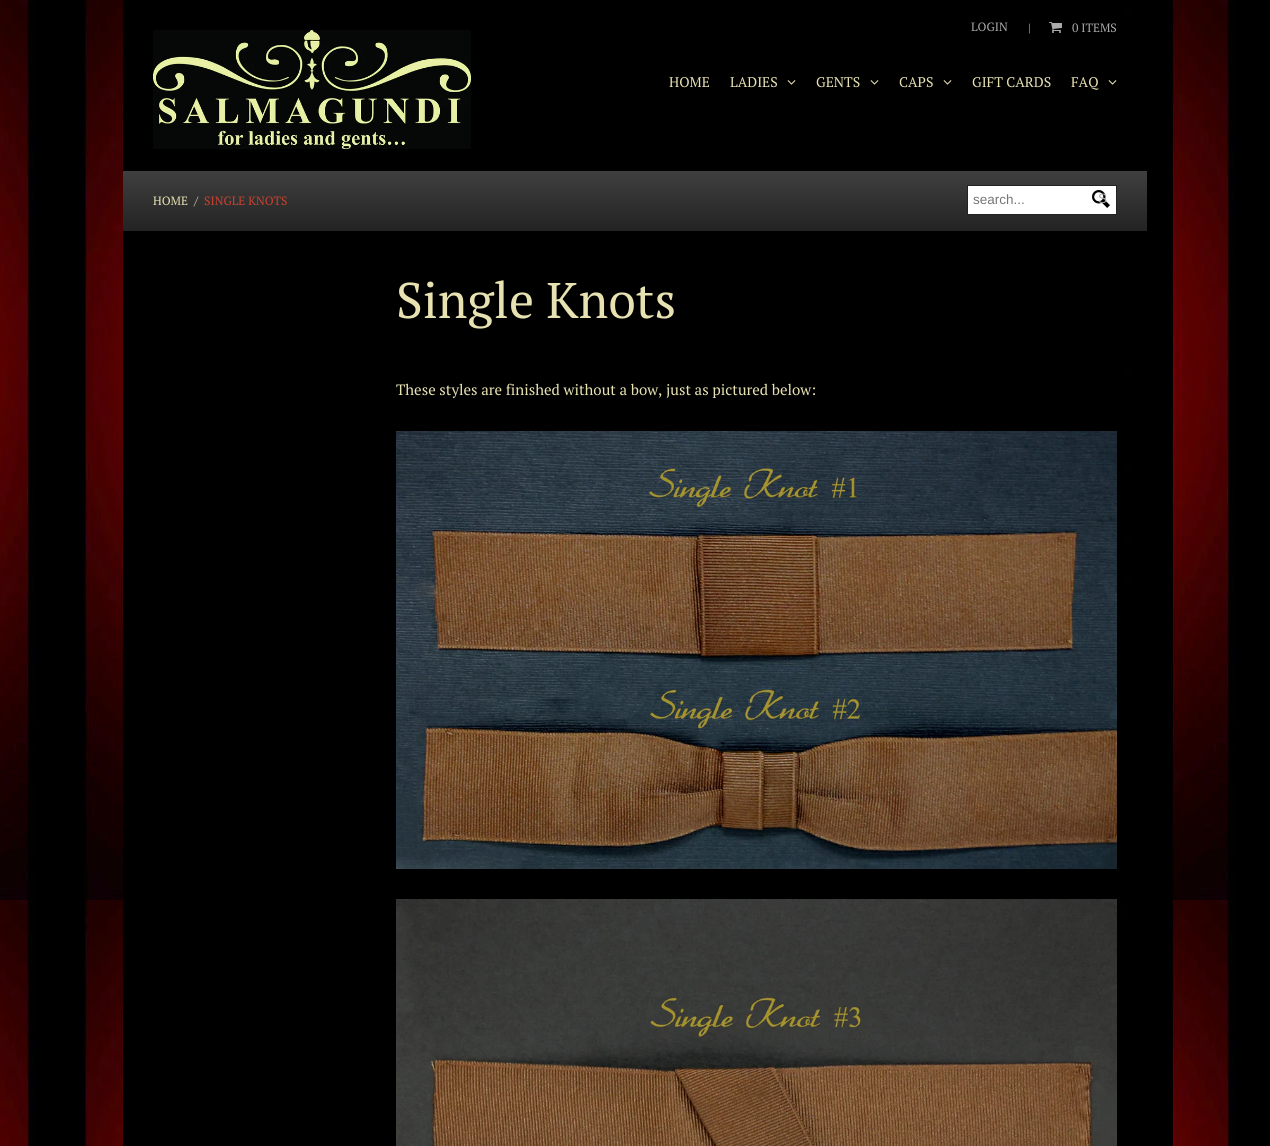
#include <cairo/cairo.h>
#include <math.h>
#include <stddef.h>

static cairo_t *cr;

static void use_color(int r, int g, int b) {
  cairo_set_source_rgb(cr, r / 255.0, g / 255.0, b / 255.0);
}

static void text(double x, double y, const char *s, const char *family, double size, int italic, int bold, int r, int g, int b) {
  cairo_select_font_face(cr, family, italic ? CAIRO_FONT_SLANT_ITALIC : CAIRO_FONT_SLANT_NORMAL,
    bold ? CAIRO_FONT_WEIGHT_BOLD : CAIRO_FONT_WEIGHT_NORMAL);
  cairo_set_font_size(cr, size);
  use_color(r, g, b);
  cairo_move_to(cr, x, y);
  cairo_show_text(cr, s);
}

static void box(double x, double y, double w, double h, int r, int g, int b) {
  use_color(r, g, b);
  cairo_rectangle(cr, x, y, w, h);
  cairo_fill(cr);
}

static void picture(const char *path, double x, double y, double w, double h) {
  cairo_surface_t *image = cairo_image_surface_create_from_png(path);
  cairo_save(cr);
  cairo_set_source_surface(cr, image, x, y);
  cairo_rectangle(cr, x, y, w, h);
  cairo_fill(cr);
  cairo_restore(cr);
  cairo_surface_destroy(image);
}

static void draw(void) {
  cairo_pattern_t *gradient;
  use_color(0, 0, 0);
  cairo_paint(cr);
  picture("img_01.png", 0, 0, 1235, 1146);
  box(123, 0, 1000, 1146, 0, 0, 0);
  picture("img_02.png", 153, 30, 318, 119);
  picture("img_03.png", 1049, 22, 13, 11);
  picture("img_04.png", 787, 80, 9, 5);
  picture("img_04.png", 870, 80, 9, 5);
  picture("img_04.png", 943, 80, 9, 5);
  picture("img_04.png", 1108, 80, 9, 5);
  gradient = cairo_pattern_create_linear(635, 171, 635, 231);
  cairo_pattern_add_color_stop_rgba(gradient, 0, 0, 0, 0, 1);
  cairo_pattern_add_color_stop_rgba(gradient, 0, 0.247, 0.247, 0.247, 1);
  cairo_pattern_add_color_stop_rgba(gradient, 1, 0.137, 0.137, 0.137, 1);
  cairo_set_source(cr, gradient);
  cairo_pattern_destroy(gradient);
  cairo_rectangle(cr, 123, 171, 1024, 60);
  cairo_fill(cr);
  use_color(255, 255, 255);
  cairo_rectangle(cr, 967.5, 185.5, 149, 29);
  cairo_fill_preserve(cr);
  use_color(34, 34, 34);
  cairo_set_line_width(cr, 1);
  cairo_stroke(cr);
  picture("img_05.png", 1092, 190, 18, 18);
  picture("img_06.png", 396, 431, 721, 438);
  picture("img_07.png", 396, 899, 721, 247);
  text(971, 31, "LOGIN", "PT Serif", 12, 0, 0, 170, 170, 170);
  text(1028, 32, "|", "PT Serif", 12, 0, 0, 170, 170, 170);
  text(1072, 32, "0 ITEMS", "PT Serif", 12, 0, 0, 170, 170, 170);
  text(669, 87, "HOME", "PT Serif", 14, 0, 0, 232, 226, 178);
  text(730, 87, "LADIES", "PT Serif", 14, 0, 0, 232, 226, 178);
  text(816, 87, "GENTS", "PT Serif", 14, 0, 0, 232, 226, 178);
  text(899, 87, "CAPS", "PT Serif", 14, 0, 0, 232, 226, 178);
  text(972, 87, "GIFT CARDS", "PT Serif", 14, 0, 0, 232, 226, 178);
  text(1071, 87, "FAQ", "PT Serif", 14, 0, 0, 232, 226, 178);
  text(153, 205, "HOME", "PT Serif", 12, 0, 0, 232, 226, 178);
  text(194, 205, "/", "PT Serif", 12, 0, 0, 232, 226, 178);
  text(204, 205, "SINGLE KNOTS", "PT Serif", 12, 0, 0, 201, 65, 47);
  text(973, 204, "search...", "Liberation Sans", 13.5, 0, 0, 117, 117, 117);
  text(1098, 203, "S", "Liberation Sans", 13.5, 0, 0, 170, 170, 170);
  text(396, 318, "Single Knots", "PT Serif", 50, 0, 0, 232, 226, 178);
  text(396, 395, "These styles are finished without a bow, just as pictured below:", "PT Serif", 15, 0, 0, 232, 226, 178);
}

int main(void) {
  cairo_surface_t *surface = cairo_image_surface_create(CAIRO_FORMAT_RGB24, 1270, 1146);
  cr = cairo_create(surface);
  cairo_font_options_t *options = cairo_font_options_create();
  cairo_font_options_set_hint_metrics(options, CAIRO_HINT_METRICS_OFF);
  cairo_font_options_set_hint_style(options, CAIRO_HINT_STYLE_NONE);
  cairo_set_font_options(cr, options);
  cairo_set_miter_limit(cr, 4);
  draw();
  cairo_surface_write_to_png(surface, "out.png");
  cairo_font_options_destroy(options);
  cairo_destroy(cr);
  cairo_surface_destroy(surface);
  return 0;
}
